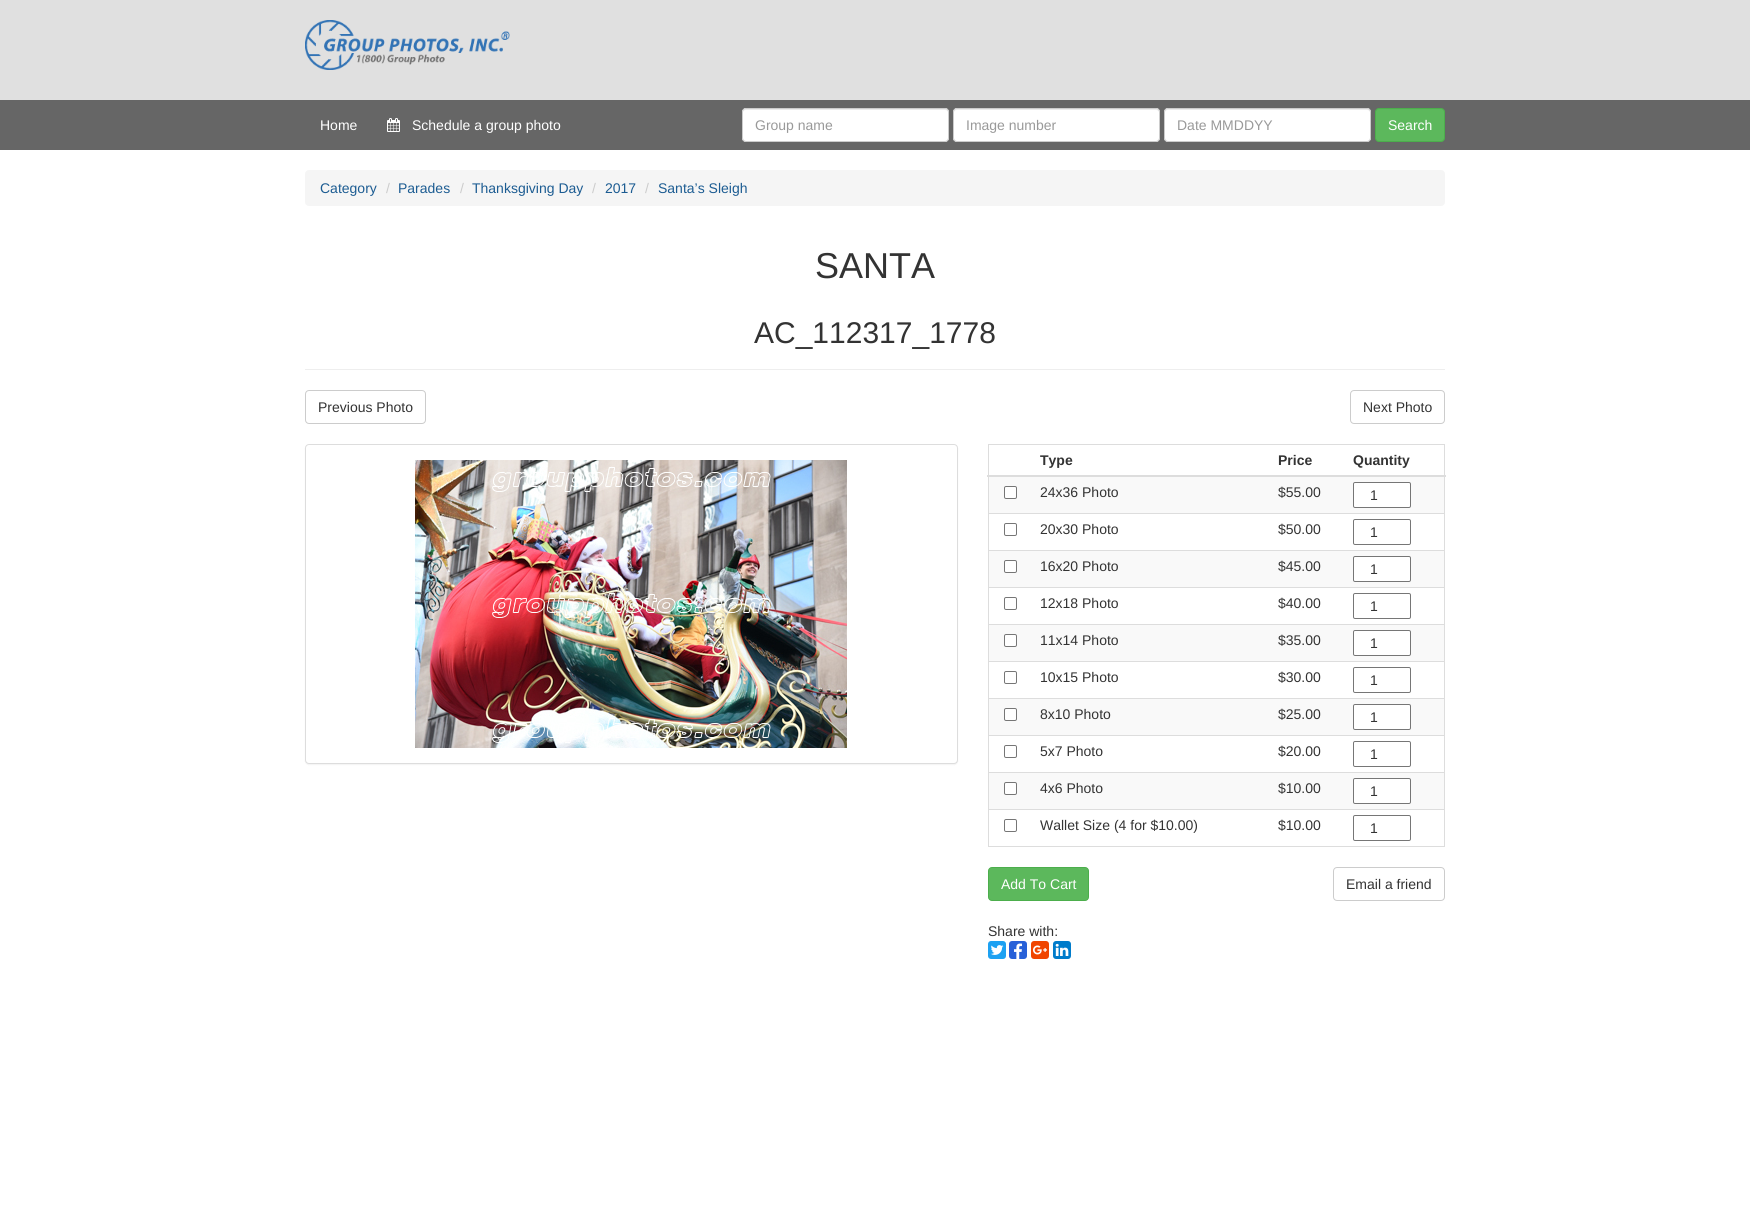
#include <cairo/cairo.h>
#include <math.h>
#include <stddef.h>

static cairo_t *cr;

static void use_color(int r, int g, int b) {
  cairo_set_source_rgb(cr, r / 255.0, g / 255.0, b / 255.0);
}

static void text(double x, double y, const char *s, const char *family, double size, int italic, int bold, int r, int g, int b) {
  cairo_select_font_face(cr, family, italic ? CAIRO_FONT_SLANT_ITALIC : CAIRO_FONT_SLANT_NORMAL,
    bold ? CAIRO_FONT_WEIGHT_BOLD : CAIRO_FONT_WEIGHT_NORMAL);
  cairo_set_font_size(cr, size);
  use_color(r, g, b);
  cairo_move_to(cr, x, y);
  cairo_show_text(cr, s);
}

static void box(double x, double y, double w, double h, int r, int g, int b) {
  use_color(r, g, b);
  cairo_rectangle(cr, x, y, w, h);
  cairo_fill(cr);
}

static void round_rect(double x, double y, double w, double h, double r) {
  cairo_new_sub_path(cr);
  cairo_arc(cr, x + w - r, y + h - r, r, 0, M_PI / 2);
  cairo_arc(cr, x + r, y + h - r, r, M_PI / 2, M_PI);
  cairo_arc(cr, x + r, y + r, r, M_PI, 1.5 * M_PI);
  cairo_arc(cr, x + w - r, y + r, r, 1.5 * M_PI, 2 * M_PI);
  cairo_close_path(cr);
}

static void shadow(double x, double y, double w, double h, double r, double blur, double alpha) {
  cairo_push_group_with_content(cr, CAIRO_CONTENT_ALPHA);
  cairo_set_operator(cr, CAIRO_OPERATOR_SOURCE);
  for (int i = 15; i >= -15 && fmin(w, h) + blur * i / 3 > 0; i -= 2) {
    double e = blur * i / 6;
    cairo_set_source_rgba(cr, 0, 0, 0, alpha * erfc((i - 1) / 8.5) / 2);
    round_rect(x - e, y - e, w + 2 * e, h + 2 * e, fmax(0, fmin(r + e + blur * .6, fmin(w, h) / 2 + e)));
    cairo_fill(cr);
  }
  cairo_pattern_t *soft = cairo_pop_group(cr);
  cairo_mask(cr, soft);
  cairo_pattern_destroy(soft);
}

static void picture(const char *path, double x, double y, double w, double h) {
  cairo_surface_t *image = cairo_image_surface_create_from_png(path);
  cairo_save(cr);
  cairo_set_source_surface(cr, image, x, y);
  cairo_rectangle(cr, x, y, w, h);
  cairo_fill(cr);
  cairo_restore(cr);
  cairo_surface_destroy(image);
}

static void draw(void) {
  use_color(255, 255, 255);
  cairo_paint(cr);
  box(0, 100, 1750, 50, 102, 102, 102);
  box(0, 0, 1750, 100, 224, 224, 224);
  picture("img_01.png", 305, 20, 205, 50);
  picture("img_02.png", 387, 118, 13, 14);
  use_color(255, 255, 255);
  round_rect(742, 108, 207, 34, 4);
  cairo_fill(cr);
  use_color(236, 236, 236);
  cairo_new_path(cr);
  cairo_move_to(cr, 746, 110);
  cairo_line_to(cr, 945, 110);
  cairo_curve_to(cr, 947, 110, 948, 111, 948, 113);
  cairo_curve_to(cr, 948, 111, 947, 109, 945, 109);
  cairo_line_to(cr, 746, 109);
  cairo_curve_to(cr, 744, 109, 743, 111, 743, 113);
  cairo_curve_to(cr, 743, 111, 744, 110, 746, 110);
  cairo_close_path(cr);
  cairo_fill(cr);
  round_rect(742.5, 108.5, 206, 33, 3.5);
  use_color(204, 204, 204);
  cairo_set_line_width(cr, 1);
  cairo_stroke(cr);
  use_color(255, 255, 255);
  round_rect(953, 108, 207, 34, 4);
  cairo_fill(cr);
  use_color(236, 236, 236);
  cairo_new_path(cr);
  cairo_move_to(cr, 957, 110);
  cairo_line_to(cr, 1156, 110);
  cairo_curve_to(cr, 1158, 110, 1159, 111, 1159, 113);
  cairo_curve_to(cr, 1159, 111, 1158, 109, 1156, 109);
  cairo_line_to(cr, 957, 109);
  cairo_curve_to(cr, 955, 109, 954, 111, 954, 113);
  cairo_curve_to(cr, 954, 111, 955, 110, 957, 110);
  cairo_close_path(cr);
  cairo_fill(cr);
  round_rect(953.5, 108.5, 206, 33, 3.5);
  use_color(204, 204, 204);
  cairo_stroke(cr);
  use_color(255, 255, 255);
  round_rect(1164, 108, 207, 34, 4);
  cairo_fill(cr);
  use_color(236, 236, 236);
  cairo_new_path(cr);
  cairo_move_to(cr, 1168, 110);
  cairo_line_to(cr, 1367, 110);
  cairo_curve_to(cr, 1369, 110, 1370, 111, 1370, 113);
  cairo_curve_to(cr, 1370, 111, 1369, 109, 1367, 109);
  cairo_line_to(cr, 1168, 109);
  cairo_curve_to(cr, 1166, 109, 1165, 111, 1165, 113);
  cairo_curve_to(cr, 1165, 111, 1166, 110, 1168, 110);
  cairo_close_path(cr);
  cairo_fill(cr);
  round_rect(1164.5, 108.5, 206, 33, 3.5);
  use_color(204, 204, 204);
  cairo_stroke(cr);
  use_color(92, 184, 92);
  round_rect(1375.5, 108.5, 69, 33, 3.5);
  cairo_fill_preserve(cr);
  use_color(76, 174, 76);
  cairo_stroke(cr);
  use_color(245, 245, 245);
  round_rect(305, 170, 1140, 36, 4);
  cairo_fill(cr);
  box(305, 369, 1140, 1, 238, 238, 238);
  round_rect(305.5, 390.5, 120, 33, 3.5);
  use_color(204, 204, 204);
  cairo_stroke(cr);
  round_rect(1350.5, 390.5, 94, 33, 3.5);
  cairo_stroke(cr);
  use_color(0, 0, 0);
  shadow(305, 445, 653, 320, 4, 0.5, 0.05);
  use_color(255, 255, 255);
  round_rect(305.5, 444.5, 652, 319, 3.5);
  cairo_fill_preserve(cr);
  use_color(221, 221, 221);
  cairo_stroke(cr);
  picture("img_03.png", 415, 460, 432, 288);
  box(988, 444, 457, 1, 221, 221, 221);
  box(1444, 444, 1, 403, 221, 221, 221);
  box(988, 846, 457, 1, 221, 221, 221);
  box(988, 444, 1, 403, 221, 221, 221);
  box(987, 475, 459, 2, 221, 221, 221);
  box(989, 477, 455, 36, 249, 249, 249);
  use_color(255, 255, 255);
  round_rect(1004.5, 486.5, 12, 12, 1.5);
  cairo_fill_preserve(cr);
  use_color(118, 118, 118);
  cairo_stroke(cr);
  use_color(255, 255, 255);
  round_rect(1353.5, 482.5, 57, 25, 1.5);
  cairo_fill_preserve(cr);
  use_color(118, 118, 118);
  cairo_stroke(cr);
  round_rect(1004.5, 523.5, 12, 12, 1.5);
  cairo_stroke(cr);
  box(988, 513, 457, 1, 221, 221, 221);
  round_rect(1353.5, 519.5, 57, 25, 1.5);
  use_color(118, 118, 118);
  cairo_stroke(cr);
  box(989, 551, 455, 36, 249, 249, 249);
  use_color(255, 255, 255);
  round_rect(1004.5, 560.5, 12, 12, 1.5);
  cairo_fill_preserve(cr);
  use_color(118, 118, 118);
  cairo_stroke(cr);
  box(988, 550, 457, 1, 221, 221, 221);
  use_color(255, 255, 255);
  round_rect(1353.5, 556.5, 57, 25, 1.5);
  cairo_fill_preserve(cr);
  use_color(118, 118, 118);
  cairo_stroke(cr);
  round_rect(1004.5, 597.5, 12, 12, 1.5);
  cairo_stroke(cr);
  box(988, 587, 457, 1, 221, 221, 221);
  round_rect(1353.5, 593.5, 57, 25, 1.5);
  use_color(118, 118, 118);
  cairo_stroke(cr);
  box(989, 625, 455, 36, 249, 249, 249);
  use_color(255, 255, 255);
  round_rect(1004.5, 634.5, 12, 12, 1.5);
  cairo_fill_preserve(cr);
  use_color(118, 118, 118);
  cairo_stroke(cr);
  box(988, 624, 457, 1, 221, 221, 221);
  use_color(255, 255, 255);
  round_rect(1353.5, 630.5, 57, 25, 1.5);
  cairo_fill_preserve(cr);
  use_color(118, 118, 118);
  cairo_stroke(cr);
  round_rect(1004.5, 671.5, 12, 12, 1.5);
  cairo_stroke(cr);
  box(988, 661, 457, 1, 221, 221, 221);
  round_rect(1353.5, 667.5, 57, 25, 1.5);
  use_color(118, 118, 118);
  cairo_stroke(cr);
  box(989, 699, 455, 36, 249, 249, 249);
  use_color(255, 255, 255);
  round_rect(1004.5, 708.5, 12, 12, 1.5);
  cairo_fill_preserve(cr);
  use_color(118, 118, 118);
  cairo_stroke(cr);
  box(988, 698, 457, 1, 221, 221, 221);
  use_color(255, 255, 255);
  round_rect(1353.5, 704.5, 57, 25, 1.5);
  cairo_fill_preserve(cr);
  use_color(118, 118, 118);
  cairo_stroke(cr);
  round_rect(1004.5, 745.5, 12, 12, 1.5);
  cairo_stroke(cr);
  box(988, 735, 457, 1, 221, 221, 221);
  round_rect(1353.5, 741.5, 57, 25, 1.5);
  use_color(118, 118, 118);
  cairo_stroke(cr);
  box(989, 773, 455, 36, 249, 249, 249);
  use_color(255, 255, 255);
  round_rect(1004.5, 782.5, 12, 12, 1.5);
  cairo_fill_preserve(cr);
  use_color(118, 118, 118);
  cairo_stroke(cr);
  box(988, 772, 457, 1, 221, 221, 221);
  use_color(255, 255, 255);
  round_rect(1353.5, 778.5, 57, 25, 1.5);
  cairo_fill_preserve(cr);
  use_color(118, 118, 118);
  cairo_stroke(cr);
  round_rect(1004.5, 819.5, 12, 12, 1.5);
  cairo_stroke(cr);
  box(988, 809, 457, 1, 221, 221, 221);
  round_rect(1353.5, 815.5, 57, 25, 1.5);
  use_color(118, 118, 118);
  cairo_stroke(cr);
  use_color(92, 184, 92);
  round_rect(988.5, 867.5, 100, 33, 3.5);
  cairo_fill_preserve(cr);
  use_color(76, 174, 76);
  cairo_stroke(cr);
  round_rect(1333.5, 867.5, 111, 33, 3.5);
  use_color(204, 204, 204);
  cairo_stroke(cr);
  picture("img_04.png", 988, 941, 18, 18);
  picture("img_05.png", 1009, 941, 18, 18);
  picture("img_06.png", 1031, 941, 18, 18);
  picture("img_07.png", 1053, 941, 18, 18);
  text(320, 130, "Home", "Liberation Sans", 14, 0, 0, 255, 255, 255);
  text(412, 130, "Schedule a group photo", "Liberation Sans", 14, 0, 0, 255, 255, 255);
  text(755, 130, "Group name", "Liberation Sans", 14, 0, 0, 153, 153, 153);
  text(966, 130, "Image number", "Liberation Sans", 14, 0, 0, 153, 153, 153);
  text(1177, 130, "Date MMDDYY", "Liberation Sans", 14, 0, 0, 153, 153, 153);
  text(1388, 130, "Search", "Liberation Sans", 14, 0, 0, 255, 255, 255);
  text(320, 193, "Category", "Liberation Sans", 14, 0, 0, 28, 92, 146);
  text(386, 193, "/", "Liberation Sans", 14, 0, 0, 204, 204, 204);
  text(398, 193, "Parades", "Liberation Sans", 14, 0, 0, 28, 92, 146);
  text(460, 193, "/", "Liberation Sans", 14, 0, 0, 204, 204, 204);
  text(472, 193, "Thanksgiving Day", "Liberation Sans", 14, 0, 0, 28, 92, 146);
  text(592, 193, "/", "Liberation Sans", 14, 0, 0, 204, 204, 204);
  text(605, 193, "2017", "Liberation Sans", 14, 0, 0, 28, 92, 146);
  text(645, 193, "/", "Liberation Sans", 14, 0, 0, 204, 204, 204);
  text(658, 193, "Santa’s Sleigh", "Liberation Sans", 14, 0, 0, 28, 92, 146);
  text(815, 278, "SANTA", "Liberation Sans", 36, 0, 0, 51, 51, 51);
  text(754, 343, "AC_112317_1778", "Liberation Sans", 30, 0, 0, 51, 51, 51);
  text(318, 412, "Previous Photo", "Liberation Sans", 14, 0, 0, 51, 51, 51);
  text(1363, 412, "Next Photo", "Liberation Sans", 14, 0, 0, 51, 51, 51);
  text(1040, 465, "Type", "Liberation Sans", 14, 0, 1, 51, 51, 51);
  text(1278, 465, "Price", "Liberation Sans", 14, 0, 1, 51, 51, 51);
  text(1353, 465, "Quantity", "Liberation Sans", 14, 0, 1, 51, 51, 51);
  text(1040, 497, "24x36 Photo", "Liberation Sans", 14, 0, 0, 51, 51, 51);
  text(1278, 497, "$55.00", "Liberation Sans", 14, 0, 0, 51, 51, 51);
  text(1370, 500, "1", "Liberation Sans", 14, 0, 0, 51, 51, 51);
  text(1040, 534, "20x30 Photo", "Liberation Sans", 14, 0, 0, 51, 51, 51);
  text(1278, 534, "$50.00", "Liberation Sans", 14, 0, 0, 51, 51, 51);
  text(1370, 537, "1", "Liberation Sans", 14, 0, 0, 51, 51, 51);
  text(1040, 571, "16x20 Photo", "Liberation Sans", 14, 0, 0, 51, 51, 51);
  text(1278, 571, "$45.00", "Liberation Sans", 14, 0, 0, 51, 51, 51);
  text(1370, 574, "1", "Liberation Sans", 14, 0, 0, 51, 51, 51);
  text(1040, 608, "12x18 Photo", "Liberation Sans", 14, 0, 0, 51, 51, 51);
  text(1278, 608, "$40.00", "Liberation Sans", 14, 0, 0, 51, 51, 51);
  text(1370, 611, "1", "Liberation Sans", 14, 0, 0, 51, 51, 51);
  text(1040, 645, "11x14 Photo", "Liberation Sans", 14, 0, 0, 51, 51, 51);
  text(1278, 645, "$35.00", "Liberation Sans", 14, 0, 0, 51, 51, 51);
  text(1370, 648, "1", "Liberation Sans", 14, 0, 0, 51, 51, 51);
  text(1040, 682, "10x15 Photo", "Liberation Sans", 14, 0, 0, 51, 51, 51);
  text(1278, 682, "$30.00", "Liberation Sans", 14, 0, 0, 51, 51, 51);
  text(1370, 685, "1", "Liberation Sans", 14, 0, 0, 51, 51, 51);
  text(1040, 719, "8x10 Photo", "Liberation Sans", 14, 0, 0, 51, 51, 51);
  text(1278, 719, "$25.00", "Liberation Sans", 14, 0, 0, 51, 51, 51);
  text(1370, 722, "1", "Liberation Sans", 14, 0, 0, 51, 51, 51);
  text(1040, 756, "5x7 Photo", "Liberation Sans", 14, 0, 0, 51, 51, 51);
  text(1278, 756, "$20.00", "Liberation Sans", 14, 0, 0, 51, 51, 51);
  text(1370, 759, "1", "Liberation Sans", 14, 0, 0, 51, 51, 51);
  text(1040, 793, "4x6 Photo", "Liberation Sans", 14, 0, 0, 51, 51, 51);
  text(1278, 793, "$10.00", "Liberation Sans", 14, 0, 0, 51, 51, 51);
  text(1370, 796, "1", "Liberation Sans", 14, 0, 0, 51, 51, 51);
  text(1040, 830, "Wallet Size (4 for $10.00)", "Liberation Sans", 14, 0, 0, 51, 51, 51);
  text(1278, 830, "$10.00", "Liberation Sans", 14, 0, 0, 51, 51, 51);
  text(1370, 833, "1", "Liberation Sans", 14, 0, 0, 51, 51, 51);
  text(1001, 889, "Add To Cart", "Liberation Sans", 14, 0, 0, 255, 255, 255);
  text(1346, 889, "Email a friend", "Liberation Sans", 14, 0, 0, 51, 51, 51);
  text(988, 936, "Share with:", "Liberation Sans", 14, 0, 0, 51, 51, 51);
}

int main(void) {
  cairo_surface_t *surface = cairo_image_surface_create(CAIRO_FORMAT_RGB24, 1750, 1226);
  cr = cairo_create(surface);
  cairo_font_options_t *options = cairo_font_options_create();
  cairo_font_options_set_hint_metrics(options, CAIRO_HINT_METRICS_OFF);
  cairo_font_options_set_hint_style(options, CAIRO_HINT_STYLE_NONE);
  cairo_set_font_options(cr, options);
  cairo_set_miter_limit(cr, 4);
  draw();
  cairo_surface_write_to_png(surface, "out.png");
  cairo_font_options_destroy(options);
  cairo_destroy(cr);
  cairo_surface_destroy(surface);
  return 0;
}
